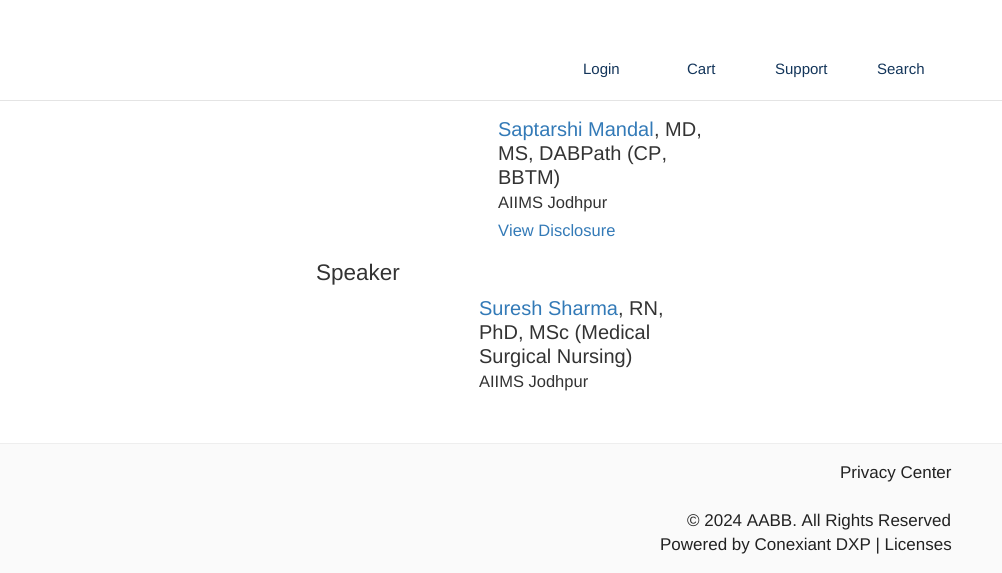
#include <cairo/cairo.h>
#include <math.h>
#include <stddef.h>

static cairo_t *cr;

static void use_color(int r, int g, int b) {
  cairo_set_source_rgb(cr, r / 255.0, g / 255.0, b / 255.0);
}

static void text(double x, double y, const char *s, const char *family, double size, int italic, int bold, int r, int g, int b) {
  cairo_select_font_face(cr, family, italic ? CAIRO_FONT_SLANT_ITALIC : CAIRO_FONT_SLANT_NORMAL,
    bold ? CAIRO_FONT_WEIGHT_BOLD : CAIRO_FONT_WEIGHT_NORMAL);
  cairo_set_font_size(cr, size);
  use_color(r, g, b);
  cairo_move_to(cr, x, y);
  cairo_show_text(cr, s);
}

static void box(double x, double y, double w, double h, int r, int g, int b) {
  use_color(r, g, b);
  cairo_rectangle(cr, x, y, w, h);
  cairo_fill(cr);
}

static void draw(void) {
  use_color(255, 255, 255);
  cairo_paint(cr);
  cairo_set_source_rgba(cr, 0.2, 0.2, 0.2, 0.13);
  cairo_new_path(cr);
  cairo_move_to(cr, 0, 100);
  cairo_line_to(cr, 0, 101);
  cairo_line_to(cr, 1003, 101);
  cairo_line_to(cr, 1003, 1);
  cairo_line_to(cr, 1002, 1);
  cairo_line_to(cr, 1002, 100);
  cairo_close_path(cr);
  cairo_fill(cr);
  box(0, 444, 1002, 129, 250, 250, 250);
  box(0, 443, 1002, 1, 238, 238, 238);
  text(583, 74, "Login", "Liberation Sans", 15, 0, 0, 19, 53, 90);
  text(687, 74, "Cart", "Liberation Sans", 15, 0, 0, 19, 53, 90);
  text(775, 74, "Support", "Liberation Sans", 15, 0, 0, 19, 53, 90);
  text(877, 74, "Search", "Liberation Sans", 15, 0, 0, 19, 53, 90);
  text(498, 136, "Saptarshi Mandal", "Liberation Sans", 20, 0, 0, 51, 122, 183);
  text(654, 136, ", MD,", "Liberation Sans", 20, 0, 0, 51, 51, 51);
  text(498, 160, "MS, DABPath (CP,", "Liberation Sans", 20, 0, 0, 51, 51, 51);
  text(498, 184, "BBTM)", "Liberation Sans", 20, 0, 0, 51, 51, 51);
  text(498, 208, "AIIMS Jodhpur", "Liberation Sans", 16.5, 0, 0, 51, 51, 51);
  text(498, 236, "View Disclosure", "Liberation Sans", 16.5, 0, 0, 51, 122, 183);
  text(316, 280, "Speaker", "Liberation Sans", 22.5, 0, 0, 51, 51, 51);
  text(479, 315, "Suresh Sharma", "Liberation Sans", 20, 0, 0, 51, 122, 183);
  text(618, 315, ", RN,", "Liberation Sans", 20, 0, 0, 51, 51, 51);
  text(479, 339, "PhD, MSc (Medical", "Liberation Sans", 20, 0, 0, 51, 51, 51);
  text(479, 363, "Surgical Nursing)", "Liberation Sans", 20, 0, 0, 51, 51, 51);
  text(479, 387, "AIIMS Jodhpur", "Liberation Sans", 16.5, 0, 0, 51, 51, 51);
  text(840, 478, "Privacy Center", "Liberation Sans", 17, 0, 0, 34, 34, 34);
  text(687, 526, "© 2024 AABB. All Rights Reserved", "Liberation Sans", 17, 0, 0, 34, 34, 34);
  text(660, 550, "Powered by Conexiant DXP | Licenses", "Liberation Sans", 17, 0, 0, 34, 34, 34);
}

int main(void) {
  cairo_surface_t *surface = cairo_image_surface_create(CAIRO_FORMAT_RGB24, 1002, 573);
  cr = cairo_create(surface);
  cairo_font_options_t *options = cairo_font_options_create();
  cairo_font_options_set_hint_metrics(options, CAIRO_HINT_METRICS_OFF);
  cairo_font_options_set_hint_style(options, CAIRO_HINT_STYLE_NONE);
  cairo_set_font_options(cr, options);
  cairo_set_miter_limit(cr, 4);
  draw();
  cairo_surface_write_to_png(surface, "out.png");
  cairo_font_options_destroy(options);
  cairo_destroy(cr);
  cairo_surface_destroy(surface);
  return 0;
}
